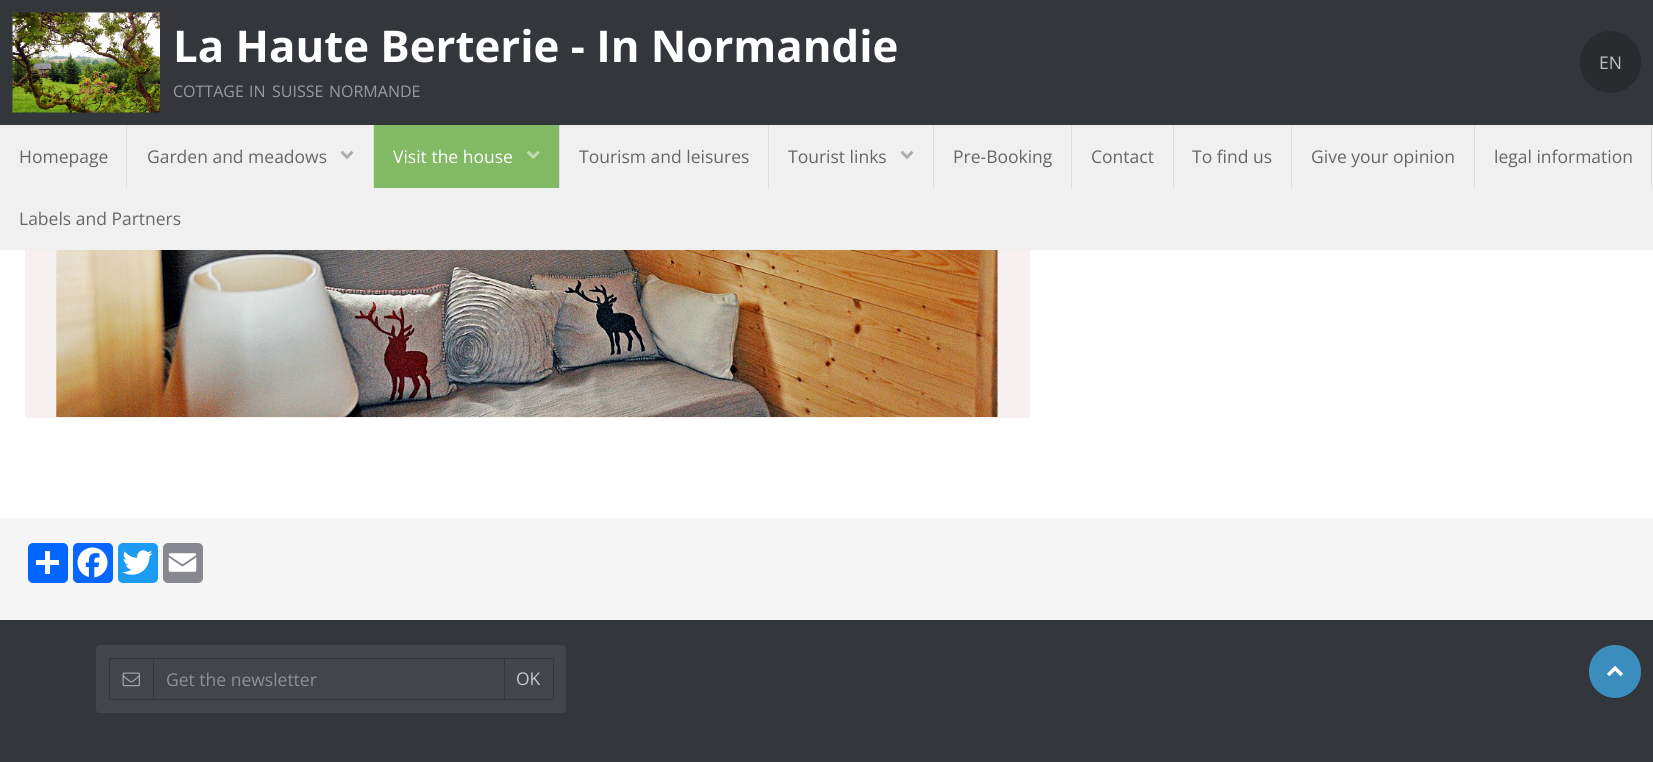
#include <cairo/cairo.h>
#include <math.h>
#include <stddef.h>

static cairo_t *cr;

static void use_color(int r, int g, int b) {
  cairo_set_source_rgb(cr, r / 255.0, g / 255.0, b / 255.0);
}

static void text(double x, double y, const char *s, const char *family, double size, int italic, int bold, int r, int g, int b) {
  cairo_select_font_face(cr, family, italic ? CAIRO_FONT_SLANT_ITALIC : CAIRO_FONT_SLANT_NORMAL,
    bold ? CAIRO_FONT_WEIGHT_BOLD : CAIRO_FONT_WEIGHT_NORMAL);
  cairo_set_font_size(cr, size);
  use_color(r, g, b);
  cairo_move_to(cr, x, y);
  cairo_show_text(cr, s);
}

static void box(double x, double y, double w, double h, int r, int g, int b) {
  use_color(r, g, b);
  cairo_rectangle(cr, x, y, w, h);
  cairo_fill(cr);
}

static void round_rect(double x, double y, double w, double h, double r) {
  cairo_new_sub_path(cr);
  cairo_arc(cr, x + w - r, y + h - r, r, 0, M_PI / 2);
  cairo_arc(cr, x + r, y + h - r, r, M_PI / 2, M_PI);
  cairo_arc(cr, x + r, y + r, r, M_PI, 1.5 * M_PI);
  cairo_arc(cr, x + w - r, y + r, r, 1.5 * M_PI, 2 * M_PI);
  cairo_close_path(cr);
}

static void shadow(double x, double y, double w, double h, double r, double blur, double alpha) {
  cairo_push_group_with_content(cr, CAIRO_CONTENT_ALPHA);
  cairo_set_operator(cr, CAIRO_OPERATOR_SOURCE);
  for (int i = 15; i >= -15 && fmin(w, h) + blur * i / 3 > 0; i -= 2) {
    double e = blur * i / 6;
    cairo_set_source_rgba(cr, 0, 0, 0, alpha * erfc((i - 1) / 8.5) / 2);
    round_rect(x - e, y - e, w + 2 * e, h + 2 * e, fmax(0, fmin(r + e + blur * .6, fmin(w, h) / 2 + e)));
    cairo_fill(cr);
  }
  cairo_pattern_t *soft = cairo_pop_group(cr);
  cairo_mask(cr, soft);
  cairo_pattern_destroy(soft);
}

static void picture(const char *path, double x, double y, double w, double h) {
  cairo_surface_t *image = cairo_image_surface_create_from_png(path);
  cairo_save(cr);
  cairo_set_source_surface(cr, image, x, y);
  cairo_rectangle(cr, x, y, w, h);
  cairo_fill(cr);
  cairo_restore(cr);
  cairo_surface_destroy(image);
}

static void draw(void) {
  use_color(255, 255, 255);
  cairo_paint(cr);
  box(0, 0, 1653, 125, 51, 54, 59);
  picture("img_01.png", 12, 12, 148, 101);
  use_color(41, 43, 47);
  round_rect(1580, 31, 61, 62, 30.5);
  cairo_fill(cr);
  box(0, 125, 1653, 125, 240, 240, 240);
  box(126, 125, 1, 63, 221, 221, 221);
  box(373, 125, 1, 63, 221, 221, 221);
  picture("img_02.png", 340, 151, 14, 8);
  box(559, 125, 1, 63, 221, 221, 221);
  box(374, 125, 185, 63, 130, 185, 101);
  picture("img_03.png", 527, 151, 13, 8);
  box(768, 125, 1, 63, 221, 221, 221);
  box(933, 125, 1, 63, 221, 221, 221);
  picture("img_02.png", 900, 151, 14, 8);
  box(1071, 125, 1, 63, 221, 221, 221);
  box(1173, 125, 1, 63, 221, 221, 221);
  box(1291, 125, 1, 63, 221, 221, 221);
  box(1474, 125, 1, 63, 221, 221, 221);
  box(1651, 125, 1, 63, 221, 221, 221);
  box(25, 250, 1005, 168, 247, 240, 240);
  picture("img_04.png", 56, 250, 942, 167);
  box(0, 518, 1653, 102, 245, 245, 245);
  use_color(1, 102, 255);
  round_rect(28, 543, 40, 40, 5);
  cairo_fill(cr);
  box(45, 551, 5, 23, 255, 255, 255);
  box(36, 560, 23, 5, 255, 255, 255);
  use_color(8, 102, 255);
  round_rect(73, 543, 40, 40, 5);
  cairo_fill(cr);
  picture("img_05.png", 77, 547, 31, 31);
  use_color(29, 155, 240);
  round_rect(118, 543, 40, 40, 5);
  cairo_fill(cr);
  picture("img_06.png", 122, 550, 31, 25);
  use_color(136, 137, 144);
  round_rect(163, 543, 40, 40, 5);
  cairo_fill(cr);
  picture("img_07.png", 168, 553, 29, 19);
  box(0, 620, 1653, 142, 51, 54, 59);
  use_color(67, 69, 74);
  round_rect(96, 645, 470, 68, 4);
  cairo_fill(cr);
  cairo_rectangle(cr, 109.5, 658.5, 44, 41);
  use_color(51, 54, 59);
  cairo_set_line_width(cr, 1);
  cairo_stroke(cr);
  picture("img_08.png", 122, 672, 18, 15);
  cairo_rectangle(cr, 153.5, 658.5, 351, 41);
  cairo_stroke(cr);
  box(504, 658, 50, 1, 51, 54, 59);
  box(553, 658, 1, 42, 51, 54, 59);
  box(504, 699, 50, 1, 51, 54, 59);
  use_color(0, 0, 0);
  shadow(1591, 651, 48, 48, 24, 0.5, 0.2);
  use_color(59, 141, 189);
  round_rect(1589, 645, 52, 53, 26);
  cairo_fill(cr);
  picture("img_09.png", 1607, 666, 16, 10);
  text(173, 62, "La Haute Berterie - In Normandie", "Open Sans", 43.75, 0, 1, 255, 255, 255);
  text(173, 97, "COTTAGE", "Open Sans", 16, 0, 0, 153, 155, 157);
  text(249, 97, "IN", "Open Sans", 16, 0, 0, 153, 155, 157);
  text(272, 97, "SUISSE", "Open Sans", 16, 0, 0, 153, 155, 157);
  text(329, 97, "NORMANDE", "Open Sans", 16, 0, 0, 153, 155, 157);
  text(1599, 69, "EN", "Open Sans", 17.5, 0, 0, 191, 191, 193);
  text(19, 163, "Homepage", "Open Sans", 17.5, 0, 0, 102, 102, 102);
  text(147, 163, "Garden and meadows", "Open Sans", 17.5, 0, 0, 102, 102, 102);
  text(393, 163, "Visit the house", "Open Sans", 17.5, 0, 0, 255, 255, 255);
  text(579, 163, "Tourism and leisures", "Open Sans", 17.5, 0, 0, 102, 102, 102);
  text(788, 163, "Tourist links", "Open Sans", 17.5, 0, 0, 102, 102, 102);
  text(953, 163, "Pre-Booking", "Open Sans", 17.5, 0, 0, 102, 102, 102);
  text(1091, 163, "Contact", "Open Sans", 17.5, 0, 0, 102, 102, 102);
  text(1192, 163, "To find us", "Open Sans", 17.5, 0, 0, 102, 102, 102);
  text(1311, 163, "Give your opinion", "Open Sans", 17.5, 0, 0, 102, 102, 102);
  text(1494, 163, "legal information", "Open Sans", 17.5, 0, 0, 102, 102, 102);
  text(19, 225, "Labels and Partners", "Open Sans", 17.5, 0, 0, 102, 102, 102);
  text(166, 686, "Get the newsletter", "Open Sans", 17.5, 0, 0, 142, 144, 147);
  text(516, 685, "OK", "Open Sans", 17.5, 0, 0, 199, 199, 201);
}

int main(void) {
  cairo_surface_t *surface = cairo_image_surface_create(CAIRO_FORMAT_RGB24, 1653, 762);
  cr = cairo_create(surface);
  cairo_font_options_t *options = cairo_font_options_create();
  cairo_font_options_set_hint_metrics(options, CAIRO_HINT_METRICS_OFF);
  cairo_font_options_set_hint_style(options, CAIRO_HINT_STYLE_NONE);
  cairo_set_font_options(cr, options);
  cairo_set_miter_limit(cr, 4);
  draw();
  cairo_surface_write_to_png(surface, "out.png");
  cairo_font_options_destroy(options);
  cairo_destroy(cr);
  cairo_surface_destroy(surface);
  return 0;
}
